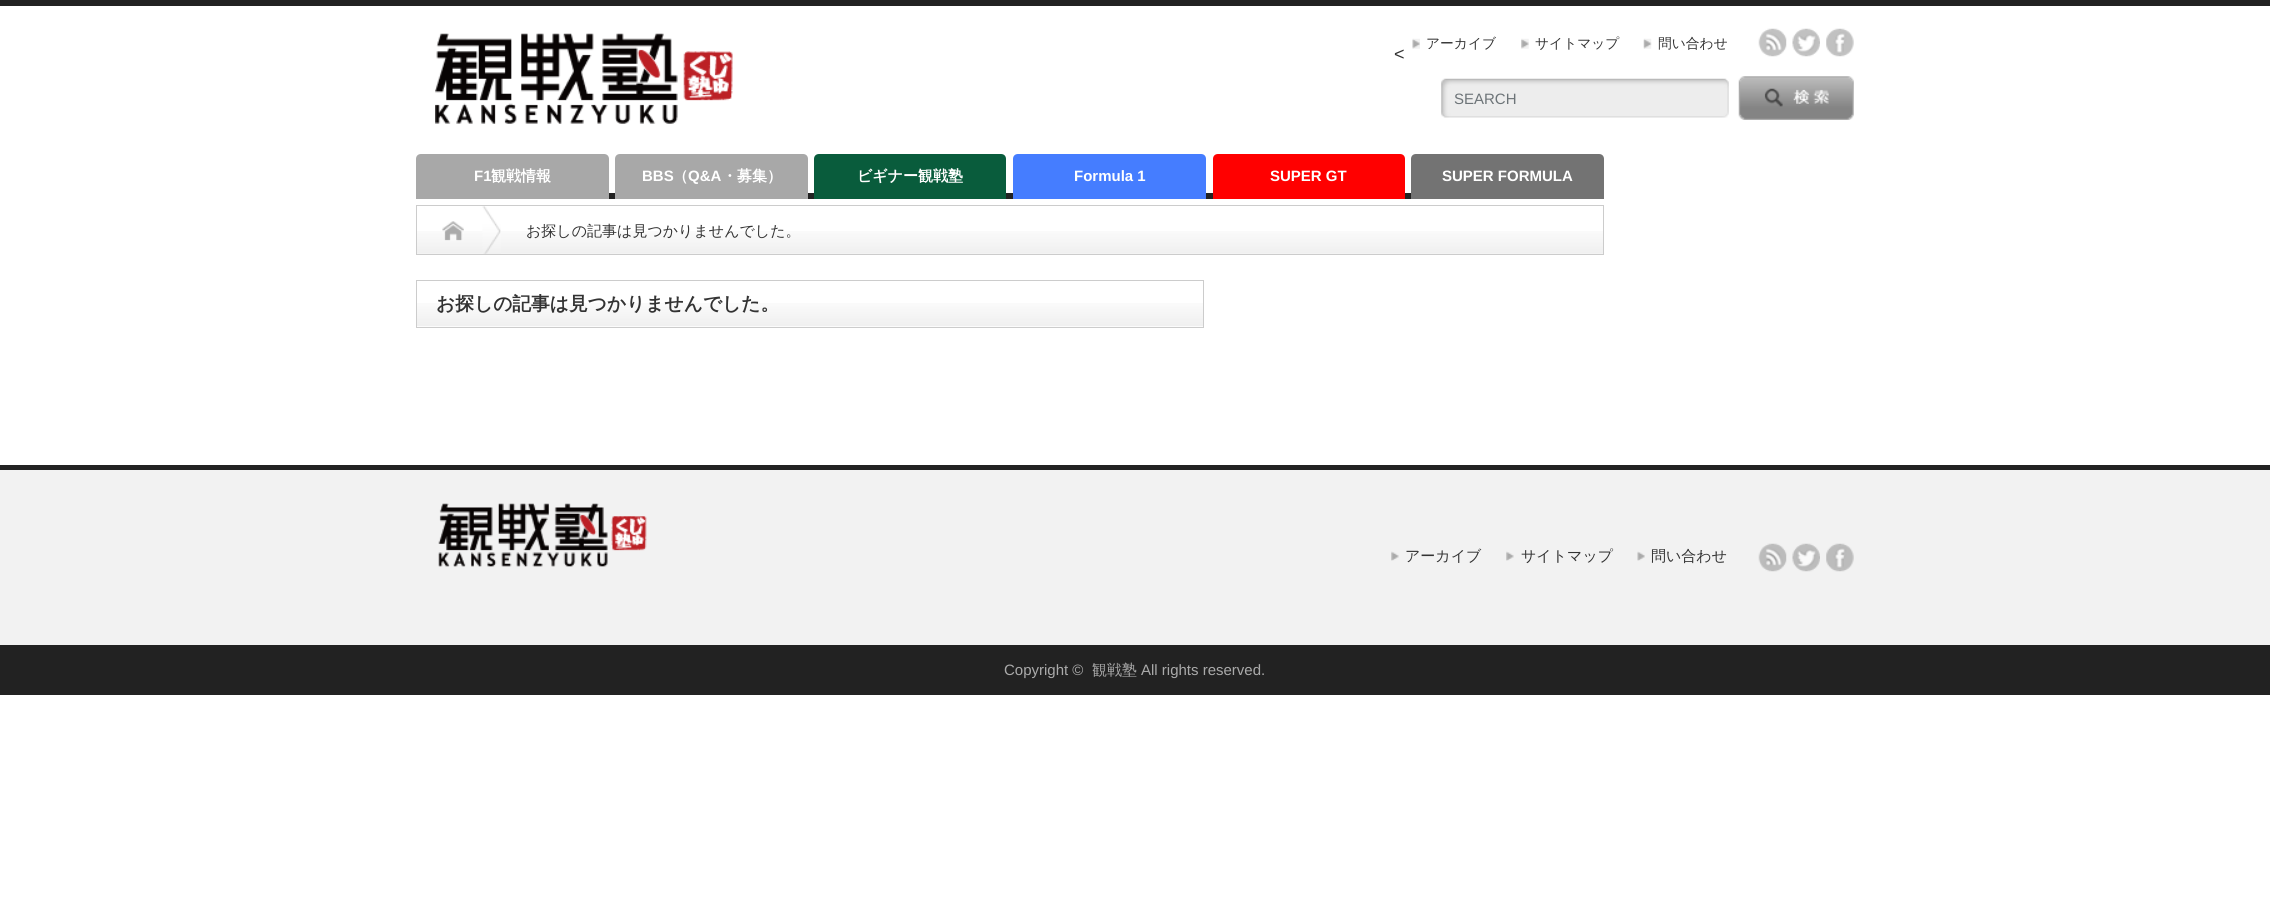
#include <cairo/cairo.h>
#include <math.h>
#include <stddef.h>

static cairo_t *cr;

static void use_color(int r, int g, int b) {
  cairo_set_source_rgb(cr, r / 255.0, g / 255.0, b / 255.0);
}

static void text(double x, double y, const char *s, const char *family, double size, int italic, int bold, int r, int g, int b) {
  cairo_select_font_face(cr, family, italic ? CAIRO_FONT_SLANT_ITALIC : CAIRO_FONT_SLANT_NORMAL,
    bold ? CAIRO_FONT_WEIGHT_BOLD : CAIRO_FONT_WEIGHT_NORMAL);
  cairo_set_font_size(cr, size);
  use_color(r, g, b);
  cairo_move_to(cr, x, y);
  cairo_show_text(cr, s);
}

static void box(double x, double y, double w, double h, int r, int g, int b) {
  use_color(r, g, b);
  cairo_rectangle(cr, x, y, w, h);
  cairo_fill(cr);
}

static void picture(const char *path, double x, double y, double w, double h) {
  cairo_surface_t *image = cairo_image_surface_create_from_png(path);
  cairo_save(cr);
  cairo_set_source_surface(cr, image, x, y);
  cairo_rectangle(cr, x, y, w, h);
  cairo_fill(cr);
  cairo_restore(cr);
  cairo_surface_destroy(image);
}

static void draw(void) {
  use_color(255, 255, 255);
  cairo_paint(cr);
  box(0, 0, 2270, 6, 34, 34, 34);
  picture("img_01.png", 435, 33, 298, 91);
  picture("img_02.png", 1412, 38, 8, 11);
  picture("img_03.png", 1521, 38, 8, 11);
  picture("img_04.png", 1643, 38, 9, 11);
  picture("img_05.png", 1758, 28, 29, 29);
  picture("img_06.png", 1792, 28, 28, 29);
  picture("img_07.png", 1826, 28, 28, 29);
  picture("img_08.png", 1441, 78, 288, 40);
  picture("img_09.png", 1738, 76, 116, 44);
  box(609, 193, 802, 6, 34, 34, 34);
  use_color(168, 168, 168);
  cairo_new_path(cr);
  cairo_move_to(cr, 421, 154);
  cairo_line_to(cr, 604, 154);
  cairo_curve_to(cr, 607, 154, 609, 156, 609, 159);
  cairo_line_to(cr, 609, 199);
  cairo_line_to(cr, 416, 199);
  cairo_line_to(cr, 416, 159);
  cairo_curve_to(cr, 416, 156, 418, 154, 421, 154);
  cairo_close_path(cr);
  cairo_fill(cr);
  cairo_new_path(cr);
  cairo_move_to(cr, 620, 154);
  cairo_line_to(cr, 803, 154);
  cairo_curve_to(cr, 806, 154, 808, 156, 808, 159);
  cairo_line_to(cr, 808, 199);
  cairo_line_to(cr, 615, 199);
  cairo_line_to(cr, 615, 159);
  cairo_curve_to(cr, 615, 156, 617, 154, 620, 154);
  cairo_close_path(cr);
  cairo_fill(cr);
  use_color(9, 92, 60);
  cairo_new_path(cr);
  cairo_move_to(cr, 819, 154);
  cairo_line_to(cr, 1001, 154);
  cairo_curve_to(cr, 1004, 154, 1006, 156, 1006, 159);
  cairo_line_to(cr, 1006, 199);
  cairo_line_to(cr, 814, 199);
  cairo_line_to(cr, 814, 159);
  cairo_curve_to(cr, 814, 156, 816, 154, 819, 154);
  cairo_close_path(cr);
  cairo_fill(cr);
  use_color(69, 125, 255);
  cairo_new_path(cr);
  cairo_move_to(cr, 1018, 154);
  cairo_line_to(cr, 1201, 154);
  cairo_curve_to(cr, 1204, 154, 1206, 156, 1206, 159);
  cairo_line_to(cr, 1206, 199);
  cairo_line_to(cr, 1013, 199);
  cairo_line_to(cr, 1013, 159);
  cairo_curve_to(cr, 1013, 156, 1015, 154, 1018, 154);
  cairo_close_path(cr);
  cairo_fill(cr);
  use_color(255, 0, 0);
  cairo_new_path(cr);
  cairo_move_to(cr, 1218, 154);
  cairo_line_to(cr, 1400, 154);
  cairo_curve_to(cr, 1403, 154, 1405, 156, 1405, 159);
  cairo_line_to(cr, 1405, 199);
  cairo_line_to(cr, 1213, 199);
  cairo_line_to(cr, 1213, 159);
  cairo_curve_to(cr, 1213, 156, 1215, 154, 1218, 154);
  cairo_close_path(cr);
  cairo_fill(cr);
  use_color(115, 115, 115);
  cairo_new_path(cr);
  cairo_move_to(cr, 1416, 154);
  cairo_line_to(cr, 1599, 154);
  cairo_curve_to(cr, 1602, 154, 1604, 156, 1604, 159);
  cairo_line_to(cr, 1604, 199);
  cairo_line_to(cr, 1411, 199);
  cairo_line_to(cr, 1411, 159);
  cairo_curve_to(cr, 1411, 156, 1413, 154, 1416, 154);
  cairo_close_path(cr);
  cairo_fill(cr);
  picture("img_10.png", 417, 231, 1186, 23);
  cairo_rectangle(cr, 416.5, 205.5, 1187, 49);
  use_color(204, 204, 204);
  cairo_set_line_width(cr, 1);
  cairo_stroke(cr);
  picture("img_11.png", 482, 206, 19, 48);
  picture("img_12.png", 442, 221, 22, 20);
  picture("img_13.png", 417, 303, 786, 24);
  cairo_rectangle(cr, 416.5, 280.5, 787, 47);
  cairo_stroke(cr);
  box(0, 470, 2270, 175, 242, 242, 242);
  box(0, 465, 2270, 5, 34, 34, 34);
  picture("img_14.png", 438, 503, 209, 64);
  picture("img_15.png", 1391, 551, 8, 10);
  picture("img_15.png", 1506, 551, 8, 10);
  picture("img_16.png", 1637, 551, 8, 10);
  picture("img_17.png", 1758, 543, 29, 29);
  picture("img_18.png", 1792, 543, 28, 29);
  picture("img_19.png", 1826, 543, 28, 29);
  box(0, 645, 2270, 50, 34, 34, 34);
  text(1426, 48, "アーカイブ", "WenQuanYi Zen Hei Medium", 13.75, 0, 0, 51, 51, 51);
  text(1535, 48, "サイトマップ", "WenQuanYi Zen Hei Medium", 13.75, 0, 0, 51, 51, 51);
  text(1658, 48, "問い合わせ", "WenQuanYi Zen Hei Medium", 13.75, 0, 0, 51, 51, 51);
  text(1394, 60, "<", "Liberation Sans", 18, 0, 0, 51, 51, 51);
  text(1454, 104, "SEARCH", "Liberation Sans", 15, 0, 0, 109, 116, 120);
  text(474, 181, "F1", "Liberation Sans", 15, 0, 1, 255, 255, 255);
  text(491, 181, "観戦情報", "WenQuanYi Zen Hei", 15, 0, 1, 255, 255, 255);
  text(642, 181, "BBS", "Liberation Sans", 15, 0, 1, 255, 255, 255);
  text(673, 181, "（", "WenQuanYi Zen Hei", 15, 0, 1, 255, 255, 255);
  text(688, 181, "Q&A", "Liberation Sans", 15, 0, 1, 255, 255, 255);
  text(722, 181, "・募集）", "WenQuanYi Zen Hei", 15, 0, 1, 255, 255, 255);
  text(857, 181, "ビギナー観戦塾", "WenQuanYi Zen Hei", 15, 0, 1, 255, 255, 255);
  text(1074, 181, "Formula 1", "Liberation Sans", 15, 0, 1, 255, 255, 255);
  text(1270, 181, "SUPER GT", "Liberation Sans", 15, 0, 1, 255, 255, 255);
  text(1442, 181, "SUPER FORMULA", "Liberation Sans", 15, 0, 1, 255, 255, 255);
  text(526, 236, "お探しの記事は見つかりませんでした。", "WenQuanYi Zen Hei Medium", 15, 0, 0, 51, 51, 51);
  text(436, 310, "お探しの記事は見つかりませんでした。", "WenQuanYi Zen Hei", 18.75, 0, 1, 51, 51, 51);
  text(1405, 561, "アーカイブ", "WenQuanYi Zen Hei Medium", 15, 0, 0, 51, 51, 51);
  text(1521, 561, "サイトマップ", "WenQuanYi Zen Hei Medium", 15, 0, 0, 51, 51, 51);
  text(1651, 561, "問い合わせ", "WenQuanYi Zen Hei Medium", 15, 0, 0, 51, 51, 51);
  text(1004, 675, "Copyright ©", "Liberation Sans", 15, 0, 0, 170, 170, 170);
  text(1092, 675, "観戦塾", "WenQuanYi Zen Hei Medium", 15, 0, 0, 170, 170, 170);
  text(1141, 675, "All rights reserved.", "Liberation Sans", 15, 0, 0, 170, 170, 170);
}

int main(void) {
  cairo_surface_t *surface = cairo_image_surface_create(CAIRO_FORMAT_RGB24, 2270, 905);
  cr = cairo_create(surface);
  cairo_font_options_t *options = cairo_font_options_create();
  cairo_font_options_set_hint_metrics(options, CAIRO_HINT_METRICS_OFF);
  cairo_font_options_set_hint_style(options, CAIRO_HINT_STYLE_NONE);
  cairo_set_font_options(cr, options);
  cairo_set_miter_limit(cr, 4);
  draw();
  cairo_surface_write_to_png(surface, "out.png");
  cairo_font_options_destroy(options);
  cairo_destroy(cr);
  cairo_surface_destroy(surface);
  return 0;
}
